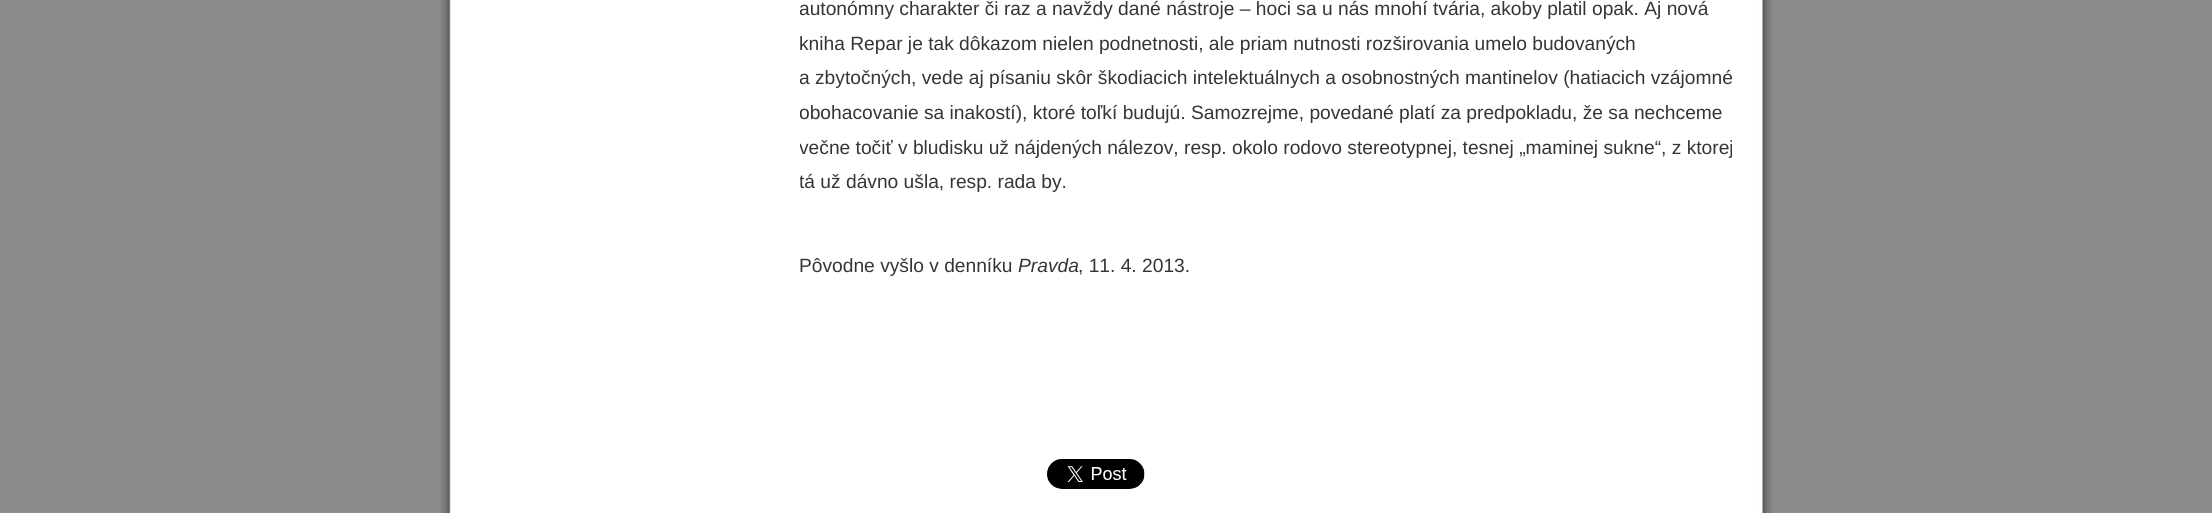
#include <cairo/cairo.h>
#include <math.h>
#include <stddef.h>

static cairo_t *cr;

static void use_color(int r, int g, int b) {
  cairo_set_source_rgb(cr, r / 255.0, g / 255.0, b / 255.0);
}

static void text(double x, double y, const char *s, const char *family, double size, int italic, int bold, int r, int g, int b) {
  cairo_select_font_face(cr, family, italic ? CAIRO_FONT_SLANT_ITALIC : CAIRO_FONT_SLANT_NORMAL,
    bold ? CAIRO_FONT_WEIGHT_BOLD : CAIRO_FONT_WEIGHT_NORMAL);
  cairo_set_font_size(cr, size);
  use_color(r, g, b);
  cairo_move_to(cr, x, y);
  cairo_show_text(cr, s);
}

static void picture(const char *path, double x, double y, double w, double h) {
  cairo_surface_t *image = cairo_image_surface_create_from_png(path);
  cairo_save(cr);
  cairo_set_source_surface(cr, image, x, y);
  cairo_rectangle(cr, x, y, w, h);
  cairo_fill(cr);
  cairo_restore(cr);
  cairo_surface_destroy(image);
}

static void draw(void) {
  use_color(140, 140, 140);
  cairo_paint(cr);
  picture("img_01.png", 439, 0, 1334, 513);
  picture("img_02.png", 1047, 459, 98, 30);
  cairo_save(cr);
  cairo_rectangle(cr, 800, 0, 937, 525);
  cairo_clip(cr);
  text(799, 15, "autonómny charakter či raz a navždy dané nástroje – hoci sa u nás mnohí tvária, akoby platil opak. Aj nová", "Liberation Sans", 19.2, 0, 0, 53, 53, 53);
  cairo_restore(cr);
  text(799, 50, "kniha Repar je tak dôkazom nielen podnetnosti, ale priam nutnosti rozširovania umelo budovaných", "Liberation Sans", 19.2, 0, 0, 53, 53, 53);
  cairo_save(cr);
  cairo_rectangle(cr, 800, 0, 937, 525);
  cairo_clip(cr);
  text(799, 84, "a zbytočných, vede aj písaniu skôr škodiacich intelektuálnych a osobnostných mantinelov (hatiacich vzájomné", "Liberation Sans", 19.2, 0, 0, 53, 53, 53);
  text(799, 119, "obohacovanie sa inakostí), ktoré toľkí budujú. Samozrejme, povedané platí za predpokladu, že sa nechceme", "Liberation Sans", 19.2, 0, 0, 53, 53, 53);
  text(799, 154, "večne točiť v bludisku už nájdených nálezov, resp. okolo rodovo stereotypnej, tesnej „maminej sukne“, z ktorej", "Liberation Sans", 19.2, 0, 0, 53, 53, 53);
  text(799, 188, "tá už dávno ušla, resp. rada by.", "Liberation Sans", 19.2, 0, 0, 53, 53, 53);
  cairo_restore(cr);
  text(799, 272, "Pôvodne vyšlo v denníku", "Liberation Sans", 19.2, 0, 0, 53, 53, 53);
  text(1018, 272, "Pravda", "Liberation Sans", 19.2, 1, 0, 53, 53, 53);
  text(1078, 272, ", 11. 4. 2013.", "Liberation Sans", 19.2, 0, 0, 53, 53, 53);
}

int main(void) {
  cairo_surface_t *surface = cairo_image_surface_create(CAIRO_FORMAT_RGB24, 2212, 513);
  cr = cairo_create(surface);
  cairo_font_options_t *options = cairo_font_options_create();
  cairo_font_options_set_hint_metrics(options, CAIRO_HINT_METRICS_OFF);
  cairo_font_options_set_hint_style(options, CAIRO_HINT_STYLE_NONE);
  cairo_set_font_options(cr, options);
  cairo_set_miter_limit(cr, 4);
  draw();
  cairo_surface_write_to_png(surface, "out.png");
  cairo_font_options_destroy(options);
  cairo_destroy(cr);
  cairo_surface_destroy(surface);
  return 0;
}
